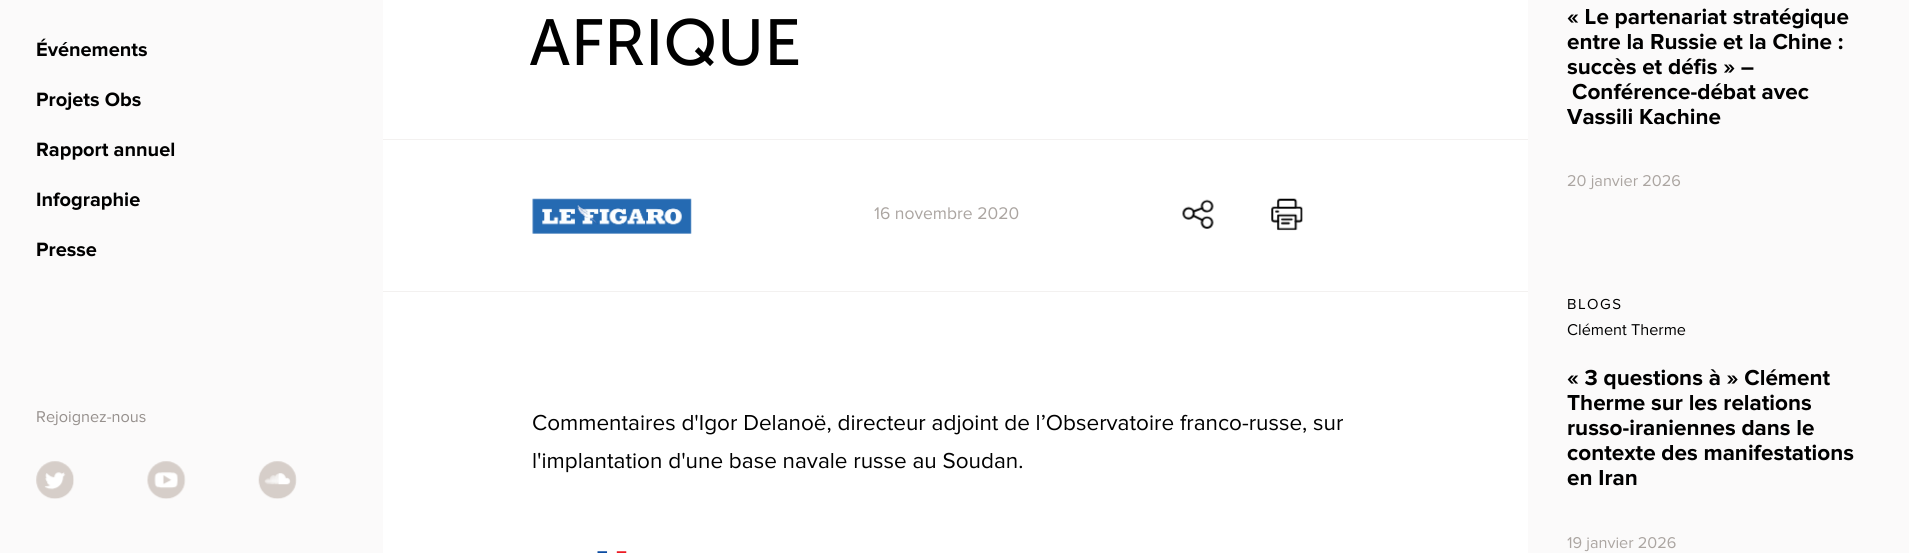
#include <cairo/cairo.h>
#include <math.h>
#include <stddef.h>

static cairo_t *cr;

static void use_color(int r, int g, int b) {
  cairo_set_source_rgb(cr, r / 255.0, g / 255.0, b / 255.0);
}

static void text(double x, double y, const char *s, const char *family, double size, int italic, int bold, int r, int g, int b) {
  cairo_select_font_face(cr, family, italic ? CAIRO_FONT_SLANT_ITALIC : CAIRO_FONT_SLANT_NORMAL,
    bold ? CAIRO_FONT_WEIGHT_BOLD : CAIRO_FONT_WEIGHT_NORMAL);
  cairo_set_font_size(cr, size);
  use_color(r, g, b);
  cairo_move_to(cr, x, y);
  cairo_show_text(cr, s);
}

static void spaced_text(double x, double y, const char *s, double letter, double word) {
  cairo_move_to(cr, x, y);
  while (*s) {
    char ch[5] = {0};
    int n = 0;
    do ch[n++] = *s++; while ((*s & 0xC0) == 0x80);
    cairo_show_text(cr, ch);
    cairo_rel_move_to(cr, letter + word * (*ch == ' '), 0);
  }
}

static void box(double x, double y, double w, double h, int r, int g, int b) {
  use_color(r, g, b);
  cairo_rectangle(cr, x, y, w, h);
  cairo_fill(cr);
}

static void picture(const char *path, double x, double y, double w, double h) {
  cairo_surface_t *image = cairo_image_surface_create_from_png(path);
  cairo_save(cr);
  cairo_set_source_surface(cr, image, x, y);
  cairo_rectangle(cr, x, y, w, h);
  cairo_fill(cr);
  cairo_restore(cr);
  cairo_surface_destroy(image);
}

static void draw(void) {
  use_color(255, 255, 255);
  cairo_paint(cr);
  box(0, 0, 383, 553, 251, 250, 250);
  picture("img_01.png", 36, 461, 38, 38);
  picture("img_02.png", 147, 461, 39, 38);
  picture("img_03.png", 258, 461, 39, 38);
  box(383, 139, 1145, 1, 243, 241, 240);
  box(383, 291, 1145, 1, 243, 241, 240);
  picture("img_04.png", 532, 198, 160, 36);
  picture("img_05.png", 1182, 199, 32, 30);
  picture("img_06.png", 1271, 198, 32, 33);
  picture("img_07.png", 597, 551, 30, 2);
  box(1528, 0, 381, 553, 251, 250, 250);
  text(36, 56, "Événements", "Proxima Nova", 20, 0, 1, 0, 0, 0);
  text(36, 106, "Projets Obs", "Proxima Nova", 20, 0, 1, 0, 0, 0);
  text(36, 156, "Rapport annuel", "Proxima Nova", 20, 0, 1, 0, 0, 0);
  text(36, 206, "Infographie", "Proxima Nova", 20, 0, 1, 0, 0, 0);
  text(36, 256, "Presse", "Proxima Nova", 20, 0, 1, 0, 0, 0);
  text(36, 422, "Rejoignez-nous", "Proxima Nova", 16.25, 0, 0, 150, 144, 141);
  text(529, 65, "AFRIQUE", "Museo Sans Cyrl", 65, 0, 0, 0, 0, 0);
  text(874, 219, "16 novembre 2020", "Proxima Nova", 17.5, 0, 0, 171, 165, 161);
  text(532, 430, "Сommentaires d'Igor Delanoë, directeur adjoint de l’Observatoire franco-russe, sur", "Proxima Nova", 22.5, 0, 0, 0, 0, 0);
  text(532, 468, "l'implantation d'une base navale russe au Soudan.", "Proxima Nova", 22.5, 0, 0, 0, 0, 0);
  text(1567, 24, "« Le partenariat stratégique", "Proxima Nova", 22.5, 0, 1, 0, 0, 0);
  text(1567, 49, "entre la Russie et la Chine :", "Proxima Nova", 22.5, 0, 1, 0, 0, 0);
  text(1567, 74, "succès et défis » –", "Proxima Nova", 22.5, 0, 1, 0, 0, 0);
  text(1572, 99, "Conférence-débat avec", "Proxima Nova", 22.5, 0, 1, 0, 0, 0);
  text(1567, 124, "Vassili Kachine", "Proxima Nova", 22.5, 0, 1, 0, 0, 0);
  text(1567, 186, "20 janvier 2026", "Proxima Nova", 16.25, 0, 0, 171, 165, 161);
  cairo_set_font_size(cr, 15);
  use_color(0, 0, 0);
  spaced_text(1567, 309, "BLOGS", 1.5, 0);
  text(1567, 335, "Clément Therme", "Proxima Nova", 16.25, 0, 0, 0, 0, 0);
  text(1567, 385, "« 3 questions à » Clément", "Proxima Nova", 22.5, 0, 1, 0, 0, 0);
  text(1567, 410, "Therme sur les relations", "Proxima Nova", 22.5, 0, 1, 0, 0, 0);
  text(1567, 435, "russo-iraniennes dans le", "Proxima Nova", 22.5, 0, 1, 0, 0, 0);
  text(1567, 460, "contexte des manifestations", "Proxima Nova", 22.5, 0, 1, 0, 0, 0);
  text(1567, 485, "en Iran", "Proxima Nova", 22.5, 0, 1, 0, 0, 0);
  text(1567, 548, "19 janvier 2026", "Proxima Nova", 16.25, 0, 0, 171, 165, 161);
}

int main(void) {
  cairo_surface_t *surface = cairo_image_surface_create(CAIRO_FORMAT_RGB24, 1909, 553);
  cr = cairo_create(surface);
  cairo_font_options_t *options = cairo_font_options_create();
  cairo_font_options_set_hint_metrics(options, CAIRO_HINT_METRICS_OFF);
  cairo_font_options_set_hint_style(options, CAIRO_HINT_STYLE_NONE);
  cairo_set_font_options(cr, options);
  cairo_set_miter_limit(cr, 4);
  draw();
  cairo_surface_write_to_png(surface, "out.png");
  cairo_font_options_destroy(options);
  cairo_destroy(cr);
  cairo_surface_destroy(surface);
  return 0;
}
